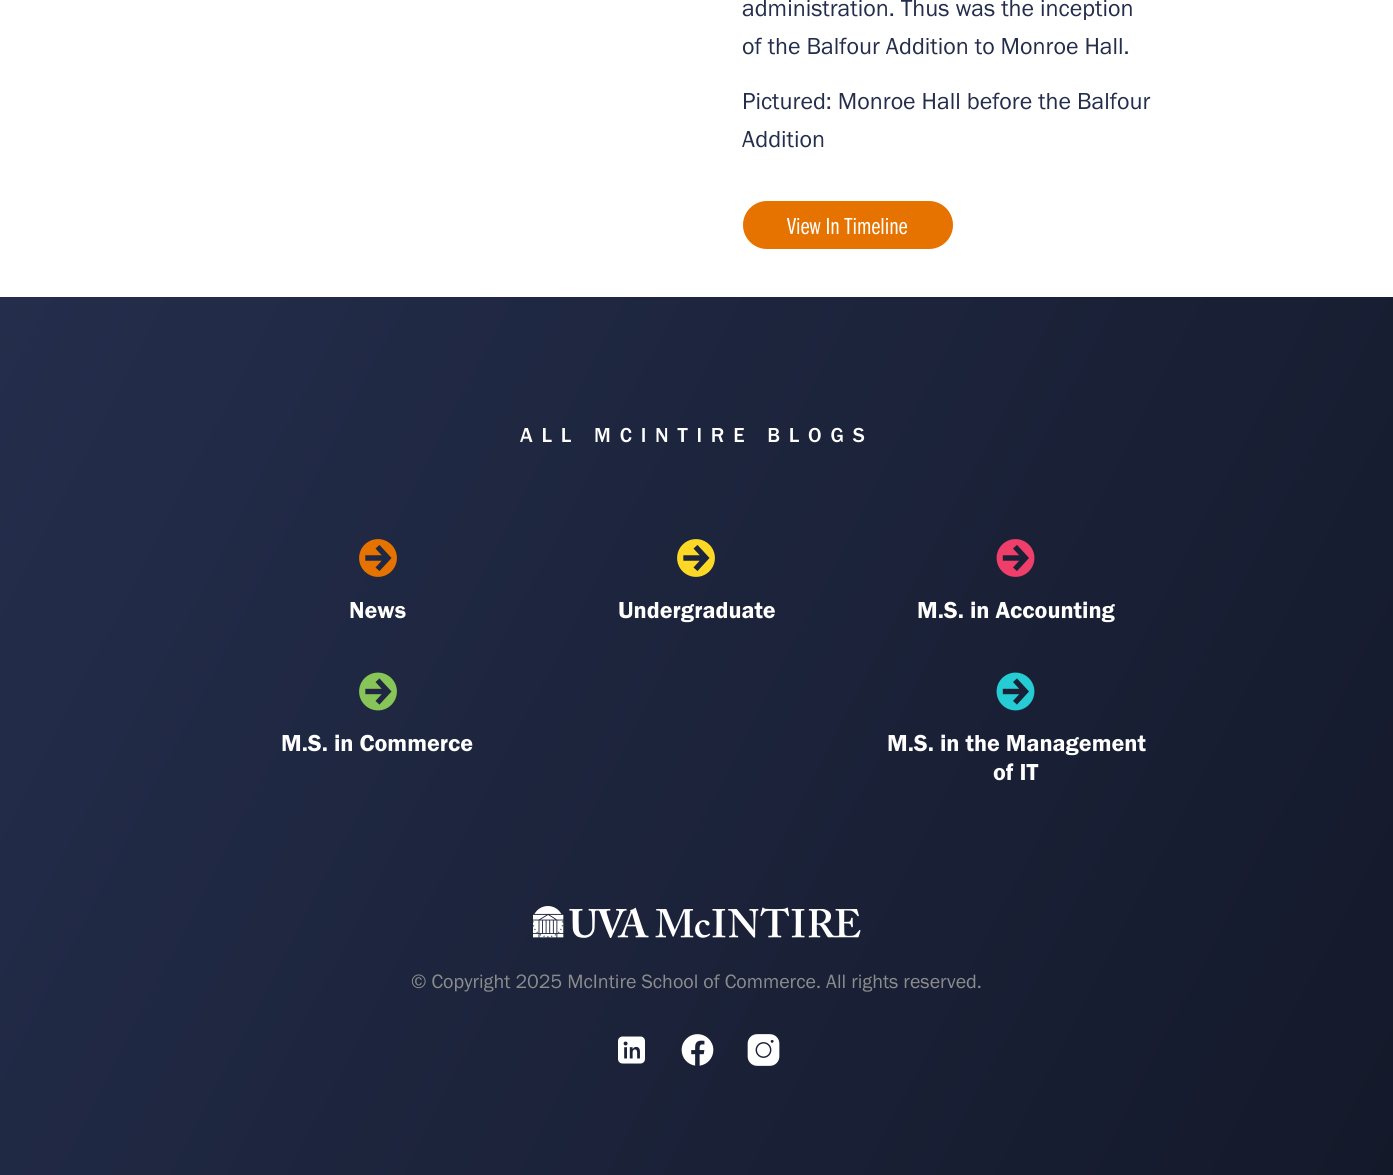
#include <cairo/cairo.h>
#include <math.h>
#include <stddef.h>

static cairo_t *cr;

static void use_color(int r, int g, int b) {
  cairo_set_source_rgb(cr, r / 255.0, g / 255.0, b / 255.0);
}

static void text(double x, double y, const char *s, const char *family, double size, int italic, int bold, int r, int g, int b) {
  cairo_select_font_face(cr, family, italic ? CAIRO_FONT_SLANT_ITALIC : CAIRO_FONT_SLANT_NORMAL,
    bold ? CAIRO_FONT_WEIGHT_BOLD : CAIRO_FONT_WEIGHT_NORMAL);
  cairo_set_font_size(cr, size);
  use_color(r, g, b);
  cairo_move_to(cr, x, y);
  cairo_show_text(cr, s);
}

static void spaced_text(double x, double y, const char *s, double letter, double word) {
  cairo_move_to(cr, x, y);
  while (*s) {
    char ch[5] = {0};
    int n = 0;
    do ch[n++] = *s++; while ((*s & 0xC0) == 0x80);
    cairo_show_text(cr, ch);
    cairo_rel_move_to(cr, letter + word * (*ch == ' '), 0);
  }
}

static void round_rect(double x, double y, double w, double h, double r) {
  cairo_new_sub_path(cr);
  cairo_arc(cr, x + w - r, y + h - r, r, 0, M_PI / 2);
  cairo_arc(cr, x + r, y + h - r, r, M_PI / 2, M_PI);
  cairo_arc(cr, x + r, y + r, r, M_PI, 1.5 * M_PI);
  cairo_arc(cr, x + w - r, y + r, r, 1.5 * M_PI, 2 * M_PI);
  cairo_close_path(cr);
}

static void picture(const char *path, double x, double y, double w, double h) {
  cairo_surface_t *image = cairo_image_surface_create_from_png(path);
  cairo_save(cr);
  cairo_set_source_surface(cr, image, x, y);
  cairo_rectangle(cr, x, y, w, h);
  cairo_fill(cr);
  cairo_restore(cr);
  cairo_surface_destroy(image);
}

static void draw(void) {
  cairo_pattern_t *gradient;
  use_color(255, 255, 255);
  cairo_paint(cr);
  use_color(230, 115, 0);
  round_rect(743, 201, 210, 48, 24);
  cairo_fill(cr);
  gradient = cairo_pattern_create_linear(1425, 1115, -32, 358);
  cairo_pattern_add_color_stop_rgba(gradient, 0, 0.078, 0.098, 0.165, 1);
  cairo_pattern_add_color_stop_rgba(gradient, 1, 0.141, 0.18, 0.298, 1);
  cairo_set_source(cr, gradient);
  cairo_pattern_destroy(gradient);
  cairo_rectangle(cr, 0, 297, 1393, 878);
  cairo_fill(cr);
  picture("img_01.png", 359, 539, 38, 38);
  picture("img_02.png", 677, 539, 38, 38);
  picture("img_03.png", 996, 539, 39, 38);
  picture("img_04.png", 359, 672, 38, 39);
  picture("img_05.png", 996, 672, 39, 39);
  picture("img_06.png", 533, 906, 328, 32);
  picture("img_07.png", 618, 1036, 27, 28);
  picture("img_08.png", 681, 1034, 33, 32);
  picture("img_09.png", 747, 1034, 33, 32);
  text(742, 16, "administration. Thus was the inception", "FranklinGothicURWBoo", 24, 0, 0, 36, 46, 76);
  text(742, 54, "of the Balfour Addition to Monroe Hall.", "FranklinGothicURWBoo", 24, 0, 0, 36, 46, 76);
  text(742, 109, "Pictured: Monroe Hall before the Balfour", "FranklinGothicURWBoo", 24, 0, 0, 36, 46, 76);
  text(742, 147, "Addition", "FranklinGothicURWBoo", 24, 0, 0, 36, 46, 76);
  text(787, 234, "View In Timeline", "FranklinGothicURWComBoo", 24, 0, 0, 255, 255, 255);
  cairo_select_font_face(cr, "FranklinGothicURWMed", CAIRO_FONT_SLANT_NORMAL, CAIRO_FONT_WEIGHT_NORMAL);
  cairo_set_font_size(cr, 21);
  spaced_text(520, 442, "ALL MCINTIRE BLOGS", 8.8, 0);
  text(349, 618, "News", "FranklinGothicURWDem", 24, 0, 0, 255, 255, 255);
  text(618, 618, "Undergraduate", "FranklinGothicURWDem", 24, 0, 0, 255, 255, 255);
  text(917, 618, "M.S. in Accounting", "FranklinGothicURWDem", 24, 0, 0, 255, 255, 255);
  text(281, 751, "M.S. in Commerce", "FranklinGothicURWDem", 24, 0, 0, 255, 255, 255);
  text(887, 751, "M.S. in the Management", "FranklinGothicURWDem", 24, 0, 0, 255, 255, 255);
  text(993, 780, "of IT", "FranklinGothicURWDem", 24, 0, 0, 255, 255, 255);
  text(411, 988, "© Copyright 2025 McIntire School of Commerce. All rights reserved.", "FranklinGothicURWBoo", 20, 0, 0, 139, 141, 141);
}

int main(void) {
  cairo_surface_t *surface = cairo_image_surface_create(CAIRO_FORMAT_RGB24, 1393, 1175);
  cr = cairo_create(surface);
  cairo_font_options_t *options = cairo_font_options_create();
  cairo_font_options_set_hint_metrics(options, CAIRO_HINT_METRICS_OFF);
  cairo_font_options_set_hint_style(options, CAIRO_HINT_STYLE_NONE);
  cairo_set_font_options(cr, options);
  cairo_set_miter_limit(cr, 4);
  draw();
  cairo_surface_write_to_png(surface, "out.png");
  cairo_font_options_destroy(options);
  cairo_destroy(cr);
  cairo_surface_destroy(surface);
  return 0;
}
